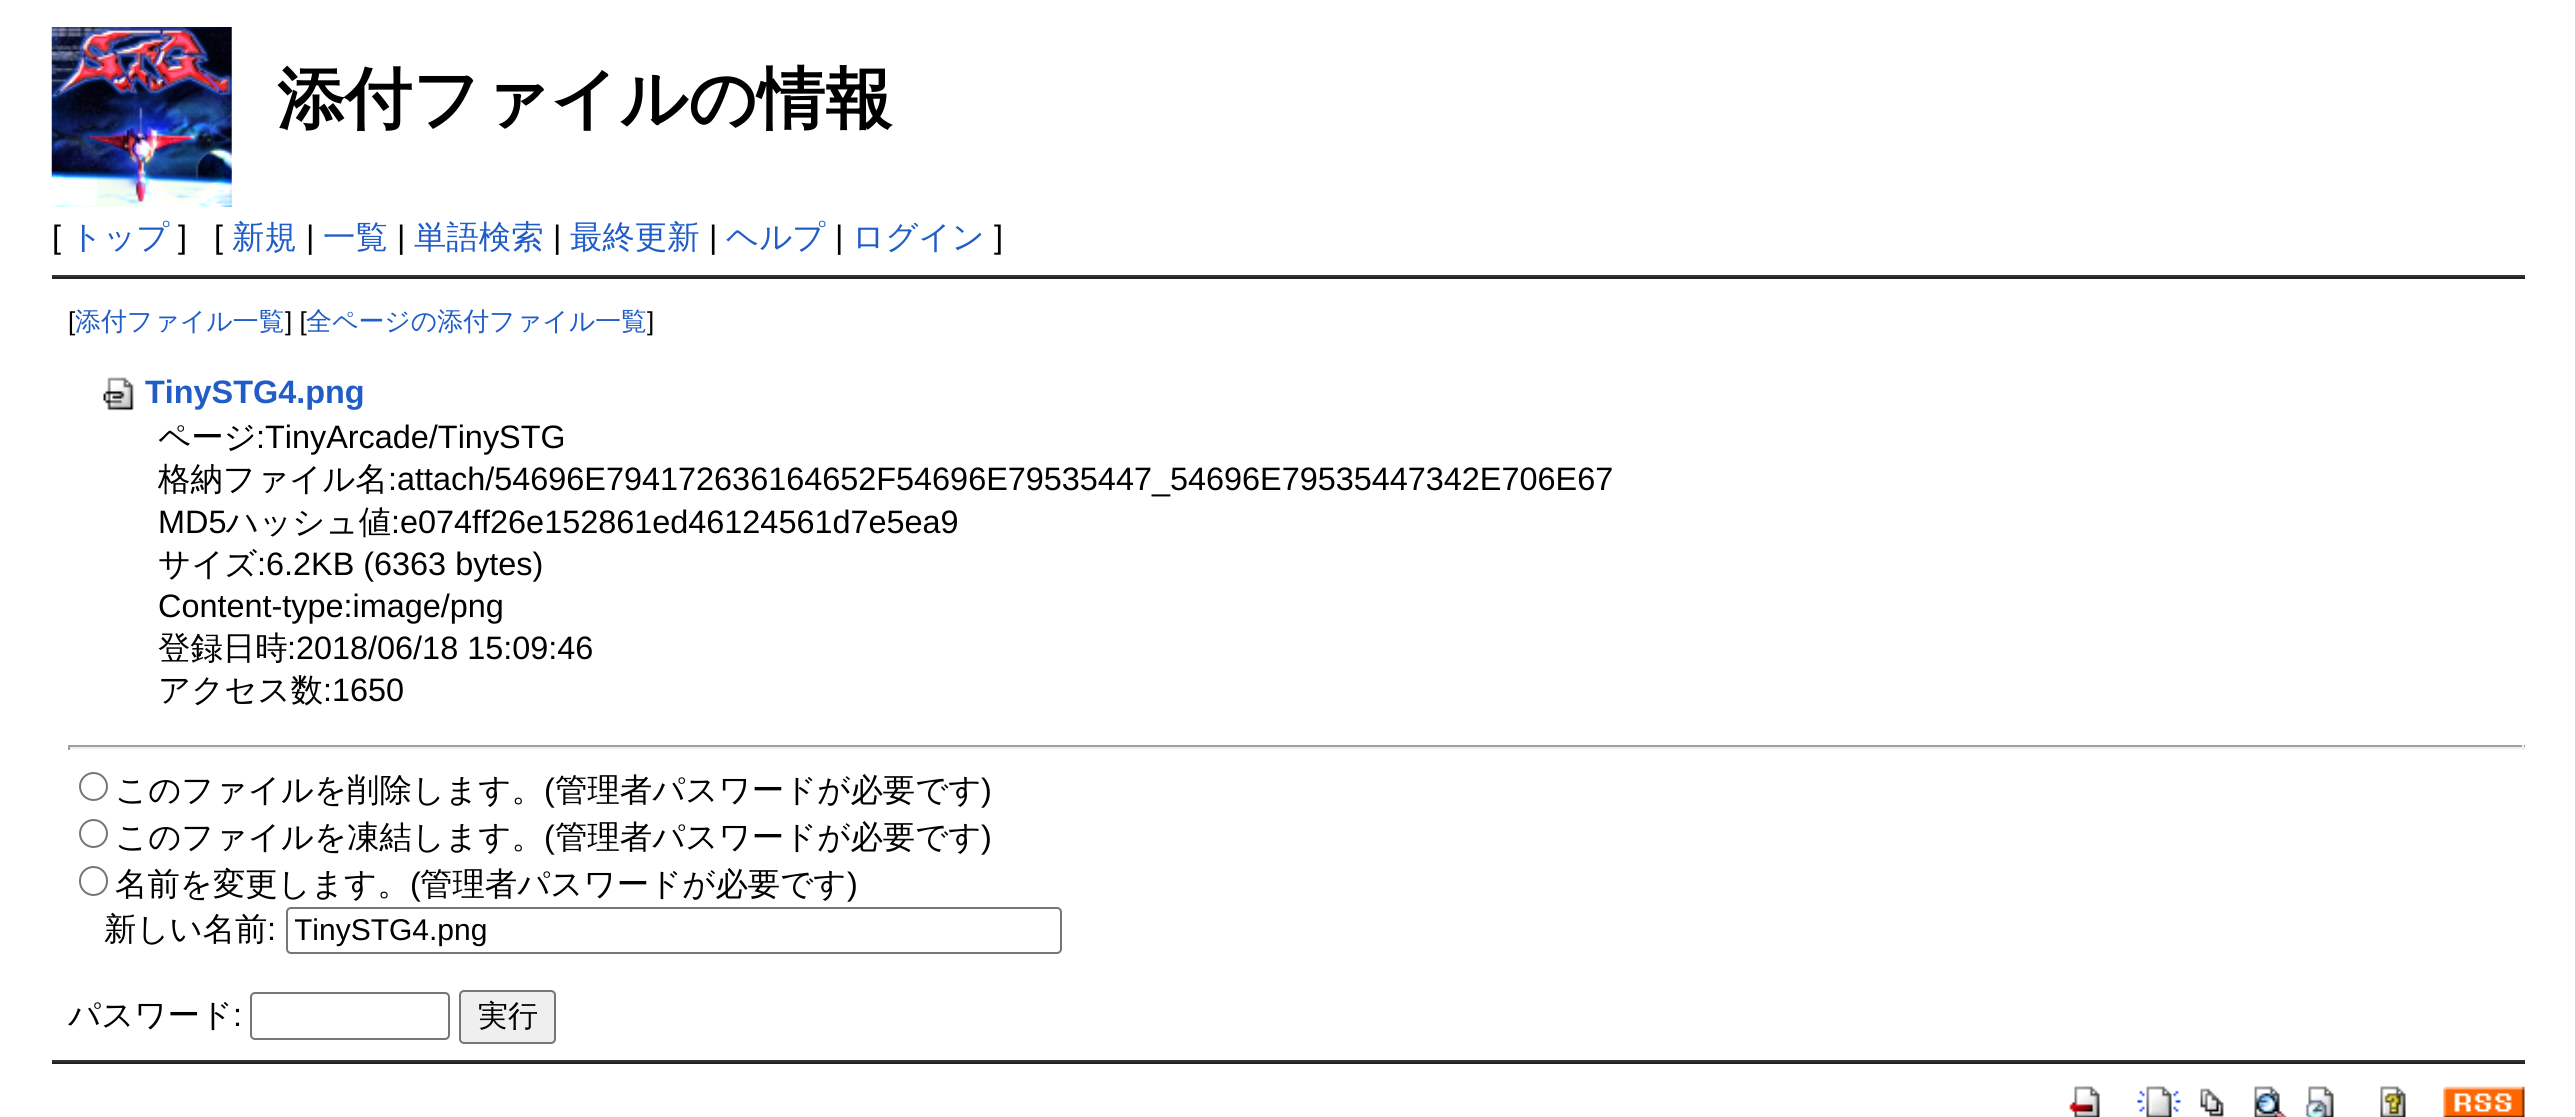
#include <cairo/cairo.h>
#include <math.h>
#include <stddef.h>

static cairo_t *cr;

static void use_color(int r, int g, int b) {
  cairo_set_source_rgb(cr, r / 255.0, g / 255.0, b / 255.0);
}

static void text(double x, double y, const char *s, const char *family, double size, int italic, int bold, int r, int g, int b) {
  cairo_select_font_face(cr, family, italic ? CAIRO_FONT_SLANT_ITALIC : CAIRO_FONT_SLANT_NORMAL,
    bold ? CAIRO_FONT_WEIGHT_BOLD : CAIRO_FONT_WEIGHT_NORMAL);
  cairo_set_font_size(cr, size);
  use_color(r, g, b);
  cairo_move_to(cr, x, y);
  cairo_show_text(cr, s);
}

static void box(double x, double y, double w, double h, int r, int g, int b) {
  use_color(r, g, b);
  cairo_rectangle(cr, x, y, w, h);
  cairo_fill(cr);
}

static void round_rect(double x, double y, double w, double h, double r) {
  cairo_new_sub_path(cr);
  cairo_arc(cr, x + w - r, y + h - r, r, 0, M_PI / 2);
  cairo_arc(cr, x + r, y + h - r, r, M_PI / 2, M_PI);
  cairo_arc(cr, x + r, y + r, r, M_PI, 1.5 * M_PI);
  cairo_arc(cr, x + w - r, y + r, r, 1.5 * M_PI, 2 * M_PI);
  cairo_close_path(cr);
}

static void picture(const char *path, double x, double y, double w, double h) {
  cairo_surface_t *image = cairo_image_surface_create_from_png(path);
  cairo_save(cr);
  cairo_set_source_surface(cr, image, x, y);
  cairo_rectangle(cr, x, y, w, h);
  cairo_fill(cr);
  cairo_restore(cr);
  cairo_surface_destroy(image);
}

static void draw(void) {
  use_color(255, 255, 255);
  cairo_paint(cr);
  picture("img_01.png", 51, 27, 181, 180);
  box(52, 275, 2473, 2, 51, 51, 51);
  box(52, 277, 2473, 2, 34, 34, 34);
  picture("img_02.png", 103, 377, 31, 34);
  box(68, 745, 2457, 2, 159, 159, 159);
  box(2522, 745, 2, 5, 238, 238, 238);
  box(68, 747, 2457, 2, 238, 238, 238);
  box(68, 745, 2, 5, 159, 159, 159);
  cairo_arc(cr, 93.5, 786.5, 13.5, 0, 2 * M_PI);
  use_color(118, 118, 118);
  cairo_stroke(cr);
  cairo_arc(cr, 93.5, 833.5, 13.5, 0, 2 * M_PI);
  cairo_stroke(cr);
  round_rect(80, 867, 27, 28, 13.5);
  cairo_stroke(cr);
  round_rect(287, 908, 774, 45, 4);
  cairo_stroke(cr);
  round_rect(251, 993, 198, 46, 4);
  cairo_stroke(cr);
  use_color(239, 239, 239);
  round_rect(460, 991, 95, 52, 4);
  cairo_fill_preserve(cr);
  use_color(118, 118, 118);
  cairo_stroke(cr);
  box(52, 1060, 2473, 2, 51, 51, 51);
  box(52, 1062, 2473, 2, 34, 34, 34);
  picture("img_03.png", 2069, 1086, 31, 31);
  picture("img_04.png", 2137, 1086, 44, 31);
  picture("img_05.png", 2200, 1088, 24, 29);
  picture("img_06.png", 2254, 1086, 33, 31);
  picture("img_07.png", 2305, 1086, 29, 31);
  picture("img_08.png", 2380, 1086, 26, 31);
  picture("img_09.png", 2443, 1086, 82, 31);
  text(277, 122, "添付ファイルの情報", "WenQuanYi Zen Hei", 67.5, 0, 1, 0, 0, 0);
  text(52, 248, "[", "Liberation Sans", 32.4, 0, 0, 0, 0, 0);
  text(70, 248, "トップ", "WenQuanYi Zen Hei Medium", 32.4, 0, 0, 33, 93, 198);
  text(178, 248, "]", "Liberation Sans", 32.4, 0, 0, 0, 0, 0);
  text(214, 248, "[", "Liberation Sans", 32.4, 0, 0, 0, 0, 0);
  text(232, 248, "新規", "WenQuanYi Zen Hei Medium", 32.4, 0, 0, 33, 93, 198);
  text(306, 248, "|", "Liberation Sans", 32.4, 0, 0, 0, 0, 0);
  text(323, 248, "一覧", "WenQuanYi Zen Hei Medium", 32.4, 0, 0, 33, 93, 198);
  text(397, 248, "|", "Liberation Sans", 32.4, 0, 0, 0, 0, 0);
  text(414, 248, "単語検索", "WenQuanYi Zen Hei Medium", 32.4, 0, 0, 33, 93, 198);
  text(553, 248, "|", "Liberation Sans", 32.4, 0, 0, 0, 0, 0);
  text(570, 248, "最終更新", "WenQuanYi Zen Hei Medium", 32.4, 0, 0, 33, 93, 198);
  text(709, 248, "|", "Liberation Sans", 32.4, 0, 0, 0, 0, 0);
  text(726, 248, "ヘルプ", "WenQuanYi Zen Hei Medium", 32.4, 0, 0, 33, 93, 198);
  text(835, 248, "|", "Liberation Sans", 32.4, 0, 0, 0, 0, 0);
  text(852, 248, "ログイン", "WenQuanYi Zen Hei Medium", 32.4, 0, 0, 33, 93, 198);
  text(994, 248, "]", "Liberation Sans", 32.4, 0, 0, 0, 0, 0);
  text(68, 330, "[", "Liberation Sans", 25.9, 0, 0, 0, 0, 0);
  text(75, 330, "添付ファイル一覧", "WenQuanYi Zen Hei Medium", 25.9, 0, 0, 33, 93, 198);
  text(285, 330, "] [", "Liberation Sans", 25.9, 0, 0, 0, 0, 0);
  text(306, 330, "全ページの添付ファイル一覧", "WenQuanYi Zen Hei Medium", 25.9, 0, 0, 33, 93, 198);
  text(647, 330, "]", "Liberation Sans", 25.9, 0, 0, 0, 0, 0);
  text(145, 403, "TinySTG4.png", "Liberation Sans", 32.4, 0, 1, 33, 93, 198);
  text(158, 448, "ページ", "WenQuanYi Zen Hei Medium", 32.4, 0, 0, 0, 0, 0);
  text(256, 448, ":TinyArcade/TinySTG", "Liberation Sans", 32.4, 0, 0, 0, 0, 0);
  text(158, 490, "格納ファイル名", "WenQuanYi Zen Hei Medium", 32.4, 0, 0, 0, 0, 0);
  text(388, 490, ":attach/54696E794172636164652F54696E79535447_54696E79535447342E706E67", "Liberation Sans", 32.4, 0, 0, 0, 0, 0);
  text(158, 533, "MD5", "Liberation Sans", 32.4, 0, 0, 0, 0, 0);
  text(226, 533, "ハッシュ値", "WenQuanYi Zen Hei Medium", 32.4, 0, 0, 0, 0, 0);
  text(391, 533, ":e074ff26e152861ed46124561d7e5ea9", "Liberation Sans", 32.4, 0, 0, 0, 0, 0);
  text(158, 575, "サイズ", "WenQuanYi Zen Hei Medium", 32.4, 0, 0, 0, 0, 0);
  text(257, 575, ":6.2KB (6363 bytes)", "Liberation Sans", 32.4, 0, 0, 0, 0, 0);
  text(158, 617, "Content-type:image/png", "Liberation Sans", 32.4, 0, 0, 0, 0, 0);
  text(158, 659, "登録日時", "WenQuanYi Zen Hei Medium", 32.4, 0, 0, 0, 0, 0);
  text(287, 659, ":2018/06/18 15:09:46", "Liberation Sans", 32.4, 0, 0, 0, 0, 0);
  text(158, 701, "アクセス数", "WenQuanYi Zen Hei Medium", 32.4, 0, 0, 0, 0, 0);
  text(323, 701, ":1650", "Liberation Sans", 32.4, 0, 0, 0, 0, 0);
  text(115, 801, "このファイルを削除します。", "WenQuanYi Zen Hei Medium", 32.4, 0, 0, 0, 0, 0);
  text(544, 801, "(", "Liberation Sans", 32.4, 0, 0, 0, 0, 0);
  text(555, 801, "管理者パスワードが必要です", "WenQuanYi Zen Hei Medium", 32.4, 0, 0, 0, 0, 0);
  text(981, 801, ")", "Liberation Sans", 32.4, 0, 0, 0, 0, 0);
  text(115, 848, "このファイルを凍結します。", "WenQuanYi Zen Hei Medium", 32.4, 0, 0, 0, 0, 0);
  text(544, 848, "(", "Liberation Sans", 32.4, 0, 0, 0, 0, 0);
  text(555, 848, "管理者パスワードが必要です", "WenQuanYi Zen Hei Medium", 32.4, 0, 0, 0, 0, 0);
  text(981, 848, ")", "Liberation Sans", 32.4, 0, 0, 0, 0, 0);
  text(115, 895, "名前を変更します。", "WenQuanYi Zen Hei Medium", 32.4, 0, 0, 0, 0, 0);
  text(410, 895, "(", "Liberation Sans", 32.4, 0, 0, 0, 0, 0);
  text(420, 895, "管理者パスワードが必要です", "WenQuanYi Zen Hei Medium", 32.4, 0, 0, 0, 0, 0);
  text(847, 895, ")", "Liberation Sans", 32.4, 0, 0, 0, 0, 0);
  text(104, 940, "新しい名前", "WenQuanYi Zen Hei Medium", 32.4, 0, 0, 0, 0, 0);
  text(267, 940, ":", "Liberation Sans", 32.4, 0, 0, 0, 0, 0);
  cairo_save(cr);
  cairo_rectangle(cr, 295, 914, 758, 33);
  cairo_clip(cr);
  text(294, 940, "TinySTG4.png", "Liberation Sans", 30, 0, 0, 0, 0, 0);
  cairo_restore(cr);
  text(68, 1026, "パスワード", "WenQuanYi Zen Hei Medium", 32.4, 0, 0, 0, 0, 0);
  text(233, 1026, ":", "Liberation Sans", 32.4, 0, 0, 0, 0, 0);
  text(478, 1026, "実行", "WenQuanYi Zen Hei Medium", 30, 0, 0, 0, 0, 0);
}

int main(void) {
  cairo_surface_t *surface = cairo_image_surface_create(CAIRO_FORMAT_RGB24, 2575, 1117);
  cr = cairo_create(surface);
  cairo_font_options_t *options = cairo_font_options_create();
  cairo_font_options_set_hint_metrics(options, CAIRO_HINT_METRICS_OFF);
  cairo_font_options_set_hint_style(options, CAIRO_HINT_STYLE_NONE);
  cairo_set_font_options(cr, options);
  cairo_set_miter_limit(cr, 4);
  draw();
  cairo_surface_write_to_png(surface, "out.png");
  cairo_font_options_destroy(options);
  cairo_destroy(cr);
  cairo_surface_destroy(surface);
  return 0;
}
